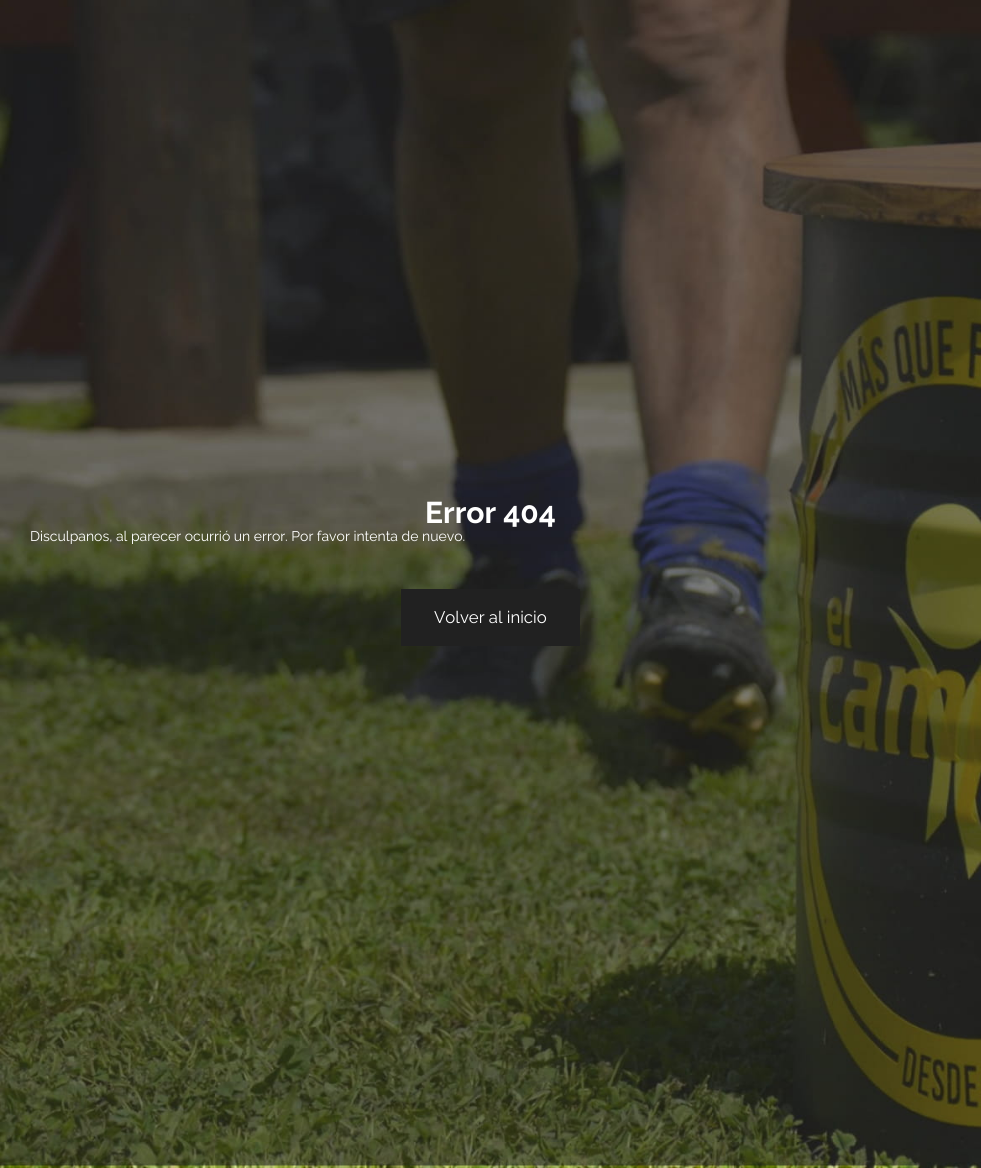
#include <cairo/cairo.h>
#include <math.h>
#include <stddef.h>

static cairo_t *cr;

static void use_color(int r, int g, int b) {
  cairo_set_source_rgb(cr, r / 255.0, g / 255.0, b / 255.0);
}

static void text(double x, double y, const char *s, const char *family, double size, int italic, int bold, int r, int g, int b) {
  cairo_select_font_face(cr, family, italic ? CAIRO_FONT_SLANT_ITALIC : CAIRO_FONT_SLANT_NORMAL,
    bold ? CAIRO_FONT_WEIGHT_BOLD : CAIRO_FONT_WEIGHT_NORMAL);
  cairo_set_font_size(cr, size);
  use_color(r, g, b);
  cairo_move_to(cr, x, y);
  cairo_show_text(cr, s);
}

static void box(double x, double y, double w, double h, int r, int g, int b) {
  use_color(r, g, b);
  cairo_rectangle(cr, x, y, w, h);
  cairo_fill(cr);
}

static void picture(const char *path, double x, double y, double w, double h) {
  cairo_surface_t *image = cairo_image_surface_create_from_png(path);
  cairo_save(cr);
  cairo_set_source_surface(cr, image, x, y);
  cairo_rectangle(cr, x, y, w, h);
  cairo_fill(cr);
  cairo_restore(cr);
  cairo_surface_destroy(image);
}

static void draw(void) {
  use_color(255, 255, 255);
  cairo_paint(cr);
  picture("img_01.png", 0, 0, 981, 1168);
  box(401, 589, 179, 57, 33, 33, 33);
  text(425, 523, "Error 404", "Raleway", 30, 0, 1, 255, 255, 255);
  text(30, 541, "Disculpanos, al parecer ocurrió un error. Por favor intenta de nuevo.", "Raleway", 14, 0, 0, 255, 255, 255);
  text(434, 623, "Volver al inicio", "Raleway", 16.75, 0, 0, 255, 255, 255);
}

int main(void) {
  cairo_surface_t *surface = cairo_image_surface_create(CAIRO_FORMAT_RGB24, 981, 1168);
  cr = cairo_create(surface);
  cairo_font_options_t *options = cairo_font_options_create();
  cairo_font_options_set_hint_metrics(options, CAIRO_HINT_METRICS_OFF);
  cairo_font_options_set_hint_style(options, CAIRO_HINT_STYLE_NONE);
  cairo_set_font_options(cr, options);
  cairo_set_miter_limit(cr, 4);
  draw();
  cairo_surface_write_to_png(surface, "out.png");
  cairo_font_options_destroy(options);
  cairo_destroy(cr);
  cairo_surface_destroy(surface);
  return 0;
}
